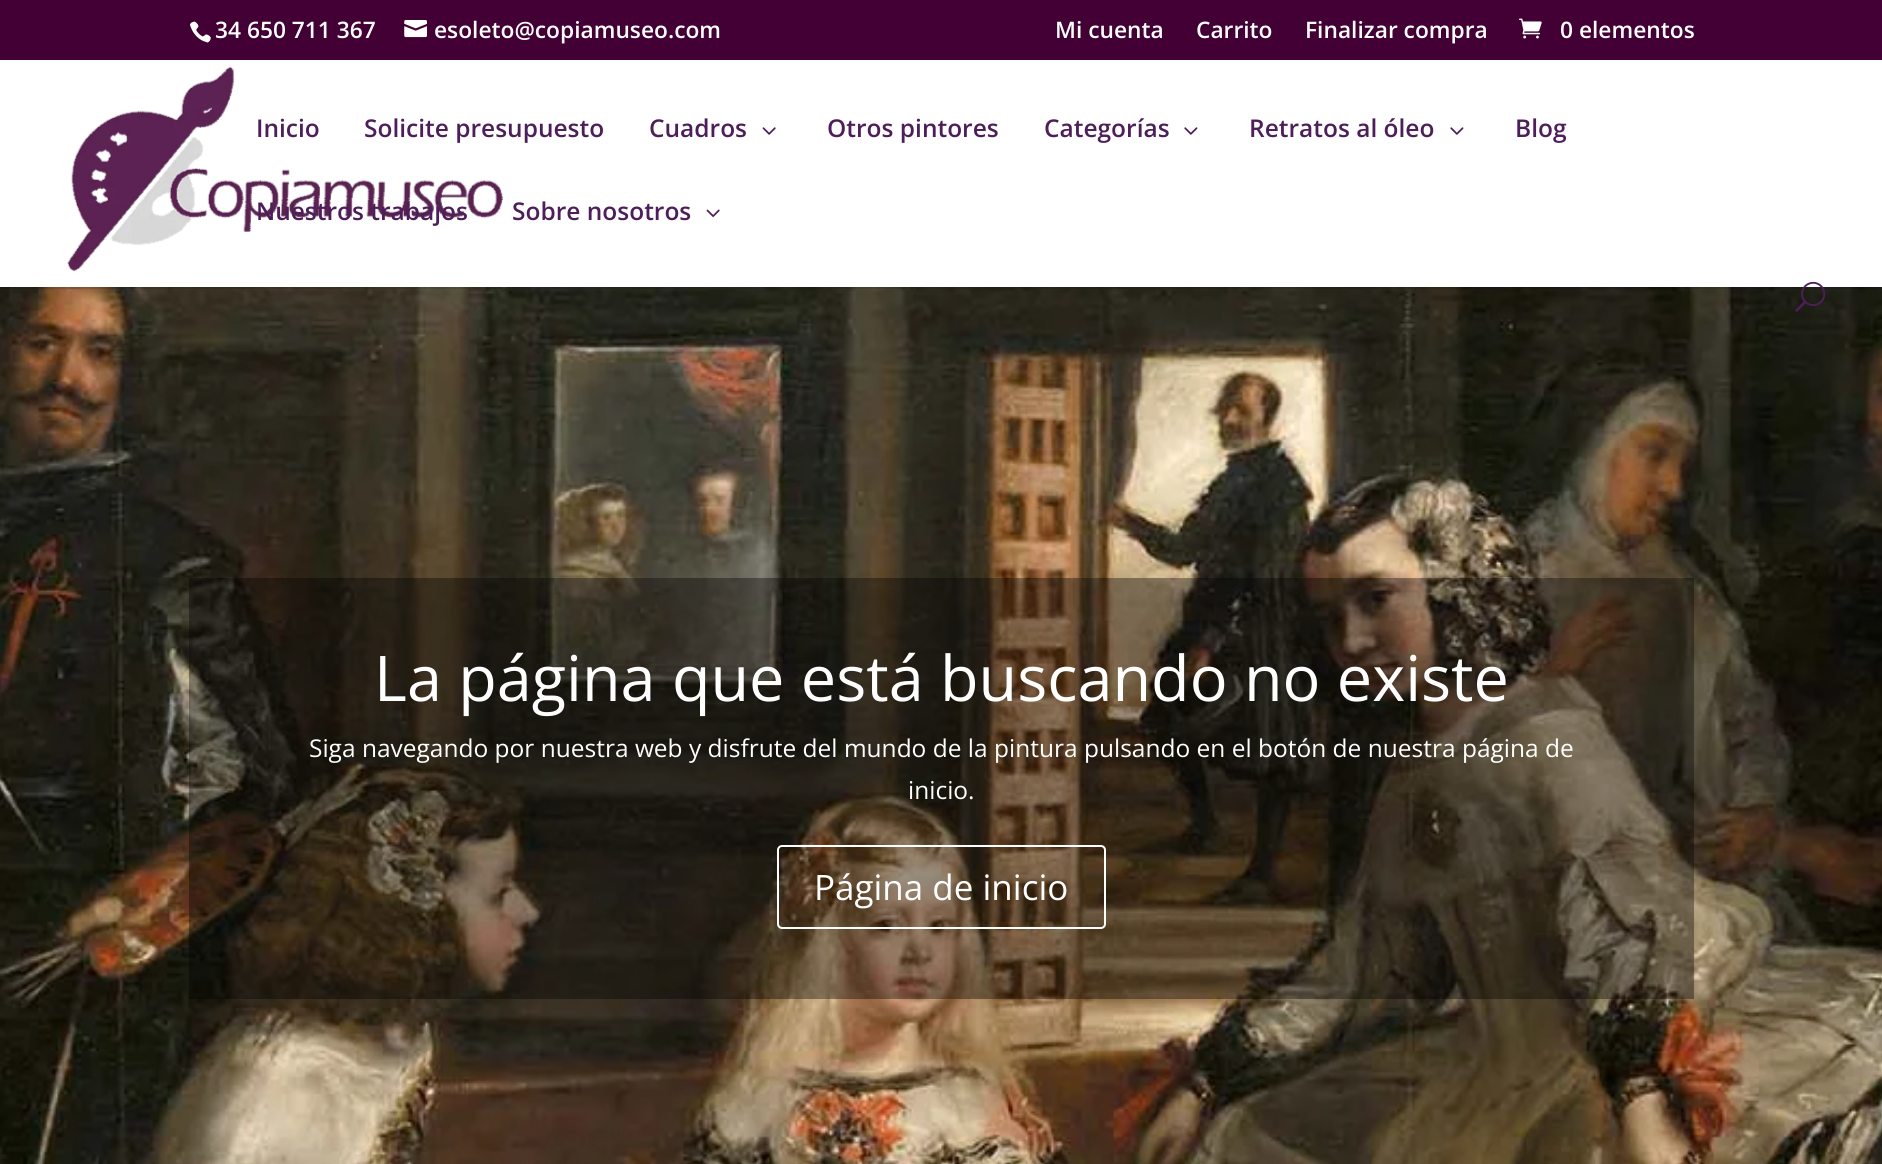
#include <cairo/cairo.h>
#include <math.h>
#include <stddef.h>

static cairo_t *cr;

static void use_color(int r, int g, int b) {
  cairo_set_source_rgb(cr, r / 255.0, g / 255.0, b / 255.0);
}

static void text(double x, double y, const char *s, const char *family, double size, int italic, int bold, int r, int g, int b) {
  cairo_select_font_face(cr, family, italic ? CAIRO_FONT_SLANT_ITALIC : CAIRO_FONT_SLANT_NORMAL,
    bold ? CAIRO_FONT_WEIGHT_BOLD : CAIRO_FONT_WEIGHT_NORMAL);
  cairo_set_font_size(cr, size);
  use_color(r, g, b);
  cairo_move_to(cr, x, y);
  cairo_show_text(cr, s);
}

static void box(double x, double y, double w, double h, int r, int g, int b) {
  use_color(r, g, b);
  cairo_rectangle(cr, x, y, w, h);
  cairo_fill(cr);
}

static void round_rect(double x, double y, double w, double h, double r) {
  cairo_new_sub_path(cr);
  cairo_arc(cr, x + w - r, y + h - r, r, 0, M_PI / 2);
  cairo_arc(cr, x + r, y + h - r, r, M_PI / 2, M_PI);
  cairo_arc(cr, x + r, y + r, r, M_PI, 1.5 * M_PI);
  cairo_arc(cr, x + w - r, y + r, r, 1.5 * M_PI, 2 * M_PI);
  cairo_close_path(cr);
}

static void picture(const char *path, double x, double y, double w, double h) {
  cairo_surface_t *image = cairo_image_surface_create_from_png(path);
  cairo_save(cr);
  cairo_set_source_surface(cr, image, x, y);
  cairo_rectangle(cr, x, y, w, h);
  cairo_fill(cr);
  cairo_restore(cr);
  cairo_surface_destroy(image);
}

static void draw(void) {
  use_color(255, 255, 255);
  cairo_paint(cr);
  box(0, 0, 1882, 60, 66, 0, 53);
  picture("img_01.png", 190, 21, 21, 22);
  picture("img_02.png", 404, 20, 23, 18);
  picture("img_03.png", 1519, 18, 23, 21);
  picture("img_09.png", 0, 287, 1882, 877);
  cairo_set_source_rgba(cr, 0, 0, 0, 0.1);
  cairo_rectangle(cr, 0, 287, 1882, 2);
  cairo_fill(cr);
  picture("img_04.png", 67, 66, 436, 205);
  picture("img_05.png", 762, 127, 14, 8);
  picture("img_06.png", 1184, 127, 14, 8);
  picture("img_06.png", 1450, 127, 14, 8);
  picture("img_07.png", 706, 209, 14, 8);
  picture("img_08.png", 1795, 281, 31, 31);
  cairo_set_source_rgba(cr, 0, 0, 0, 0.37);
  cairo_rectangle(cr, 189, 578, 1505, 421);
  cairo_fill(cr);
  round_rect(778, 846, 327, 82, 4);
  use_color(255, 255, 255);
  cairo_stroke(cr);
  text(215, 38, "34 650 711 367", "Open Sans SemiBold", 22.75, 0, 0, 255, 255, 255);
  text(434, 38, "esoleto@copiamuseo.com", "Open Sans SemiBold", 22.75, 0, 0, 255, 255, 255);
  text(1055, 38, "Mi cuenta", "Open Sans SemiBold", 22.75, 0, 0, 255, 255, 255);
  text(1196, 38, "Carrito", "Open Sans SemiBold", 22.75, 0, 0, 255, 255, 255);
  text(1305, 38, "Finalizar compra", "Open Sans SemiBold", 22.75, 0, 0, 255, 255, 255);
  text(1560, 38, "0 elementos", "Open Sans SemiBold", 22.75, 0, 0, 255, 255, 255);
  text(256, 137, "Inicio", "Open Sans SemiBold", 24.5, 0, 0, 78, 30, 91);
  text(364, 137, "Solicite presupuesto", "Open Sans SemiBold", 24.5, 0, 0, 78, 30, 91);
  text(649, 137, "Cuadros", "Open Sans SemiBold", 24.5, 0, 0, 78, 30, 91);
  text(827, 137, "Otros pintores", "Open Sans SemiBold", 24.5, 0, 0, 78, 30, 91);
  text(1044, 137, "Categorías", "Open Sans SemiBold", 24.5, 0, 0, 78, 30, 91);
  text(1249, 137, "Retratos al óleo", "Open Sans SemiBold", 24.5, 0, 0, 78, 30, 91);
  text(1515, 137, "Blog", "Open Sans SemiBold", 24.5, 0, 0, 78, 30, 91);
  text(256, 220, "Nuestros trabajos", "Open Sans SemiBold", 24.5, 0, 0, 78, 30, 91);
  text(512, 220, "Sobre nosotros", "Open Sans SemiBold", 24.5, 0, 0, 78, 30, 91);
  text(374, 701, "La página que está buscando no existe", "Open Sans", 63, 0, 0, 255, 255, 255);
  text(309, 757, "Siga navegando por nuestra web y disfrute del mundo de la pintura pulsando en el botón de nuestra página de", "Open Sans", 24.5, 0, 0, 255, 255, 255);
  text(908, 799, "inicio.", "Open Sans", 24.5, 0, 0, 255, 255, 255);
  text(814, 900, "Página de inicio", "Open Sans", 35, 0, 0, 255, 255, 255);
}

int main(void) {
  cairo_surface_t *surface = cairo_image_surface_create(CAIRO_FORMAT_RGB24, 1882, 1164);
  cr = cairo_create(surface);
  cairo_font_options_t *options = cairo_font_options_create();
  cairo_font_options_set_hint_metrics(options, CAIRO_HINT_METRICS_OFF);
  cairo_font_options_set_hint_style(options, CAIRO_HINT_STYLE_NONE);
  cairo_set_font_options(cr, options);
  cairo_set_miter_limit(cr, 4);
  draw();
  cairo_surface_write_to_png(surface, "out.png");
  cairo_font_options_destroy(options);
  cairo_destroy(cr);
  cairo_surface_destroy(surface);
  return 0;
}
